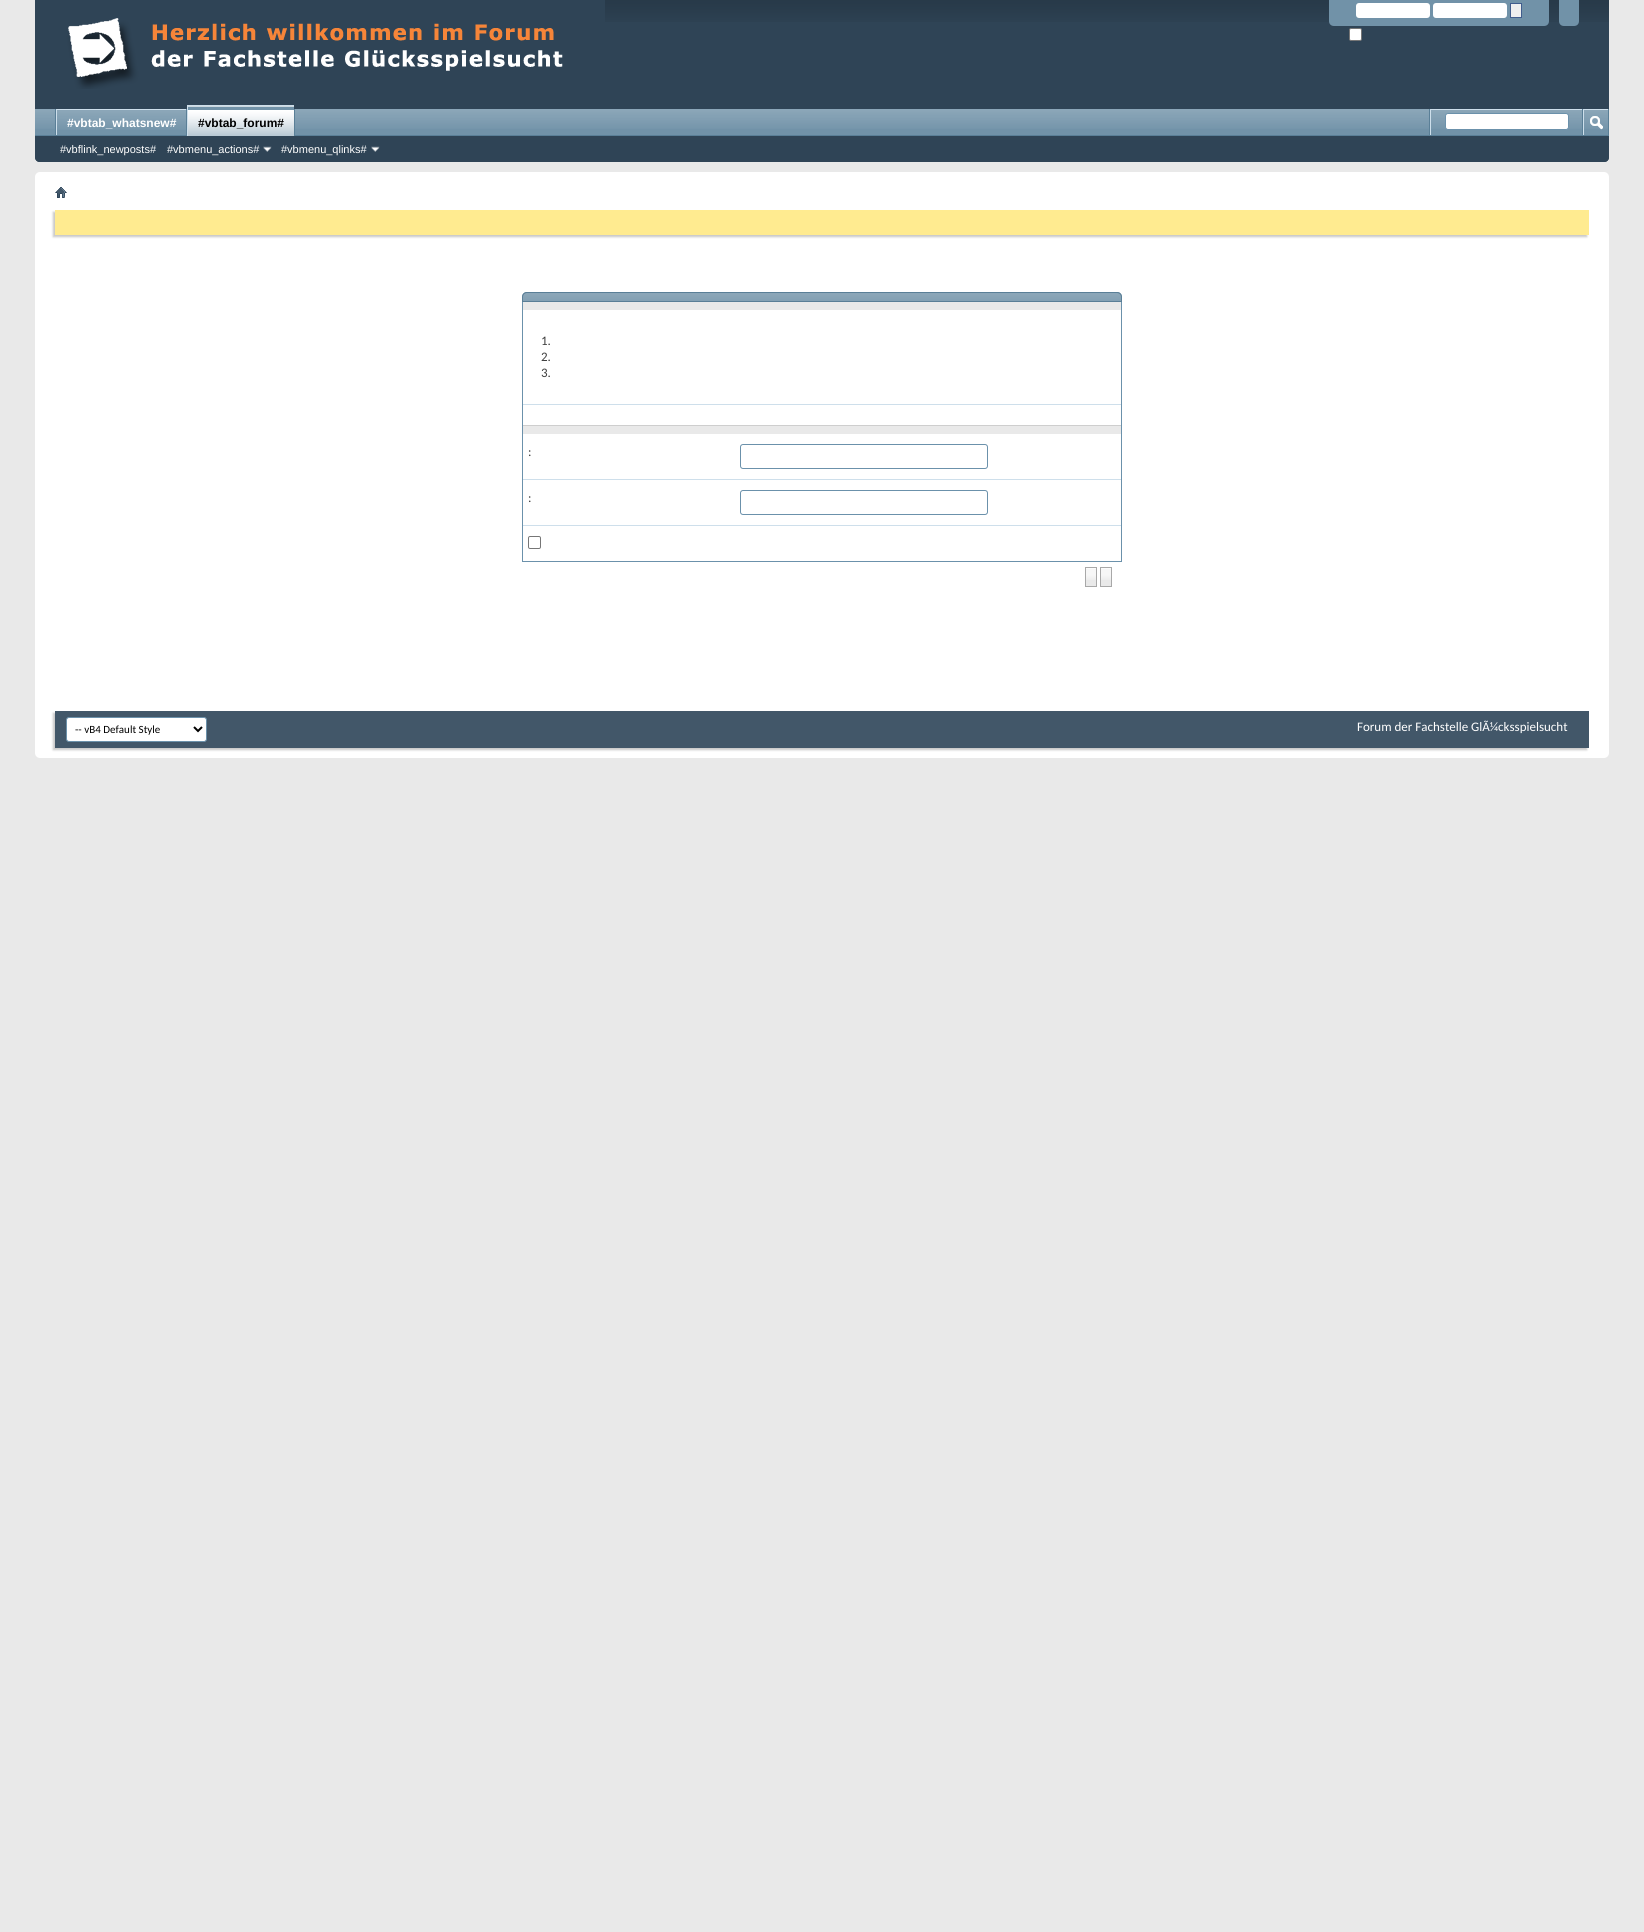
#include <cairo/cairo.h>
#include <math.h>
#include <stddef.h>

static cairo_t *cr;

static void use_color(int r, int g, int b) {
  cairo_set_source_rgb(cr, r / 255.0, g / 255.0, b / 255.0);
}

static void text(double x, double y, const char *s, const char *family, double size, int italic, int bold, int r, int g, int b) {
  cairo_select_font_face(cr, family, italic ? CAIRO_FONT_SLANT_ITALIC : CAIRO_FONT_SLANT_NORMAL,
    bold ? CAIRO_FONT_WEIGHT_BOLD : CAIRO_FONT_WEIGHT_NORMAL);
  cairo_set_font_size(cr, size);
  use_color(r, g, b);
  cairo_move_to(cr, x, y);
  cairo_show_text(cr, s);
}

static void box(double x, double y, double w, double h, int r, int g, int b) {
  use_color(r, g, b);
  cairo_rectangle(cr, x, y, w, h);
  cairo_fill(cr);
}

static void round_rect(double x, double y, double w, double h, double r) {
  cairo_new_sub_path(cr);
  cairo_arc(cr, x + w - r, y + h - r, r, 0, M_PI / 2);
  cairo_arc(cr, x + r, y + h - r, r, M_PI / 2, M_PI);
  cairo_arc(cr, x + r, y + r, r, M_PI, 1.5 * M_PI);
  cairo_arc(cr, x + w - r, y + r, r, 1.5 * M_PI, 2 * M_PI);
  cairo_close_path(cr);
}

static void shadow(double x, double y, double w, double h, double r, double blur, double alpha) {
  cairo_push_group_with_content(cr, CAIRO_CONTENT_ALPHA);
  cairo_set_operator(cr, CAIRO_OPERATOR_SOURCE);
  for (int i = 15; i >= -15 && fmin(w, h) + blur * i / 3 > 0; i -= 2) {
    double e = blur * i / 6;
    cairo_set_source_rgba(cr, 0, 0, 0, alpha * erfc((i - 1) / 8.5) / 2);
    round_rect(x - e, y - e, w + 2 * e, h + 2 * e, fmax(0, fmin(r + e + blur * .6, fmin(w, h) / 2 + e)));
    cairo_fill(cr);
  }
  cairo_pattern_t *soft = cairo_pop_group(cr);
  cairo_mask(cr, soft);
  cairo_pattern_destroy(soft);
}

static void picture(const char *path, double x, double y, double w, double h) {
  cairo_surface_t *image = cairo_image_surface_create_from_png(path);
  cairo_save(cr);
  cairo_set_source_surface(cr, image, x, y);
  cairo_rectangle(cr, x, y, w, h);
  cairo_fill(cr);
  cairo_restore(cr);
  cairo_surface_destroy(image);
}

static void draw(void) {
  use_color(233, 233, 233);
  cairo_paint(cr);
  use_color(47, 68, 86);
  cairo_new_path(cr);
  cairo_move_to(cr, 35, 0);
  cairo_line_to(cr, 1609, 0);
  cairo_line_to(cr, 1609, 157);
  cairo_curve_to(cr, 1609, 160, 1607, 162, 1604, 162);
  cairo_line_to(cr, 40, 162);
  cairo_curve_to(cr, 37, 162, 35, 160, 35, 157);
  cairo_close_path(cr);
  cairo_fill(cr);
  picture("img_01.png", 605, 0, 1004, 22);
  picture("img_02.png", 35, 0, 570, 89);
  use_color(113, 146, 168);
  cairo_new_path(cr);
  cairo_move_to(cr, 1329, 0);
  cairo_line_to(cr, 1549, 0);
  cairo_line_to(cr, 1549, 21);
  cairo_curve_to(cr, 1549, 24, 1547, 26, 1544, 26);
  cairo_line_to(cr, 1334, 26);
  cairo_curve_to(cr, 1331, 26, 1329, 24, 1329, 21);
  cairo_close_path(cr);
  cairo_fill(cr);
  use_color(255, 255, 255);
  round_rect(1356, 3, 74, 15, 3);
  cairo_fill(cr);
  round_rect(1433, 3, 74, 15, 3);
  cairo_fill(cr);
  use_color(239, 239, 239);
  cairo_rectangle(cr, 1510.5, 3.5, 11, 14);
  cairo_fill_preserve(cr);
  use_color(65, 93, 141);
  cairo_set_line_width(cr, 1);
  cairo_stroke(cr);
  use_color(255, 255, 255);
  round_rect(1349.5, 28.5, 12, 12, 1.5);
  cairo_fill_preserve(cr);
  use_color(118, 118, 118);
  cairo_stroke(cr);
  use_color(113, 146, 168);
  cairo_new_path(cr);
  cairo_move_to(cr, 1559, 0);
  cairo_line_to(cr, 1579, 0);
  cairo_line_to(cr, 1579, 21);
  cairo_curve_to(cr, 1579, 24, 1577, 26, 1574, 26);
  cairo_line_to(cr, 1564, 26);
  cairo_curve_to(cr, 1561, 26, 1559, 24, 1559, 21);
  cairo_close_path(cr);
  cairo_fill(cr);
  use_color(47, 68, 86);
  cairo_new_path(cr);
  cairo_move_to(cr, 35, 109);
  cairo_line_to(cr, 1609, 109);
  cairo_line_to(cr, 1609, 157);
  cairo_curve_to(cr, 1609, 160, 1607, 162, 1604, 162);
  cairo_line_to(cr, 40, 162);
  cairo_curve_to(cr, 37, 162, 35, 160, 35, 157);
  cairo_close_path(cr);
  cairo_fill(cr);
  box(35, 109, 1573, 26, 113, 146, 168);
  picture("img_03.png", 35, 109, 1573, 20);
  box(186, 109, 1, 27, 90, 127, 151);
  box(55, 109, 1, 27, 90, 127, 151);
  box(57, 110, 129, 19, 113, 146, 168);
  picture("img_04.png", 57, 110, 129, 20);
  box(56, 109, 130, 1, 206, 223, 235);
  box(56, 109, 1, 27, 206, 223, 235);
  box(294, 109, 1, 26, 90, 127, 151);
  box(35, 135, 1574, 1, 90, 127, 151);
  box(188, 106, 106, 30, 113, 146, 168);
  picture("img_05.png", 188, 106, 106, 30);
  box(187, 105, 107, 1, 206, 223, 235);
  box(187, 105, 1, 31, 206, 223, 235);
  picture("img_06.png", 263, 146, 9, 6);
  picture("img_06.png", 371, 146, 9, 6);
  box(1429, 109, 1, 26, 90, 127, 151);
  box(1430, 109, 152, 1, 206, 223, 235);
  box(1430, 109, 1, 26, 206, 223, 235);
  use_color(255, 255, 255);
  round_rect(1445.5, 113.5, 123, 16, 2.5);
  cairo_fill_preserve(cr);
  use_color(107, 145, 171);
  cairo_stroke(cr);
  box(1608, 109, 1, 26, 90, 127, 151);
  box(1582, 109, 1, 26, 90, 127, 151);
  box(1583, 109, 25, 1, 206, 223, 235);
  box(1583, 109, 1, 26, 206, 223, 235);
  picture("img_07.png", 1590, 116, 13, 14);
  use_color(255, 255, 255);
  round_rect(35, 172, 1574, 586, 5);
  cairo_fill(cr);
  picture("img_08.png", 55, 187, 12, 11);
  use_color(200, 200, 200);
  shadow(53, 212, 1534, 25, 0, 1, 1);
  box(55, 210, 1534, 25, 255, 235, 144);
  use_color(113, 146, 168);
  cairo_new_path(cr);
  cairo_move_to(cr, 527, 292);
  cairo_line_to(cr, 1117, 292);
  cairo_curve_to(cr, 1120, 292, 1122, 294, 1122, 297);
  cairo_line_to(cr, 1122, 302);
  cairo_line_to(cr, 522, 302);
  cairo_line_to(cr, 522, 297);
  cairo_curve_to(cr, 522, 294, 524, 292, 527, 292);
  cairo_close_path(cr);
  cairo_fill(cr);
  picture("img_09.png", 522, 293, 600, 8);
  cairo_new_path(cr);
  cairo_move_to(cr, 527, 292.5);
  cairo_line_to(cr, 1117, 292.5);
  cairo_curve_to(cr, 1119.5, 292.5, 1121.5, 294.5, 1121.5, 297);
  cairo_line_to(cr, 1121.5, 301.5);
  cairo_line_to(cr, 522.5, 301.5);
  cairo_line_to(cr, 522.5, 297);
  cairo_curve_to(cr, 522.5, 294.5, 524.5, 292.5, 527, 292.5);
  cairo_close_path(cr);
  use_color(90, 127, 151);
  cairo_stroke(cr);
  box(1121, 302, 1, 260, 107, 145, 171);
  box(522, 561, 600, 1, 107, 145, 171);
  box(522, 302, 1, 260, 107, 145, 171);
  box(523, 302, 598, 8, 233, 233, 233);
  box(523, 404, 598, 1, 206, 223, 235);
  box(523, 426, 598, 8, 233, 233, 233);
  box(523, 425, 598, 1, 206, 206, 206);
  round_rect(740.5, 444.5, 247, 24, 2.5);
  use_color(107, 145, 171);
  cairo_stroke(cr);
  box(523, 479, 598, 1, 206, 223, 235);
  round_rect(740.5, 490.5, 247, 24, 2.5);
  use_color(107, 145, 171);
  cairo_stroke(cr);
  box(523, 525, 598, 1, 206, 223, 235);
  round_rect(528.5, 536.5, 12, 12, 1.5);
  use_color(118, 118, 118);
  cairo_stroke(cr);
  box(1086, 568, 10, 18, 233, 233, 233);
  picture("img_10.png", 1086, 568, 10, 12);
  cairo_rectangle(cr, 1085.5, 567.5, 11, 19);
  use_color(168, 168, 168);
  cairo_stroke(cr);
  box(1101, 568, 10, 18, 233, 233, 233);
  picture("img_10.png", 1101, 568, 10, 12);
  cairo_rectangle(cr, 1100.5, 567.5, 11, 19);
  use_color(168, 168, 168);
  cairo_stroke(cr);
  use_color(200, 200, 200);
  shadow(53, 713, 1534, 37, 0, 1, 1);
  box(55, 711, 1534, 37, 66, 87, 105);
  use_color(255, 255, 255);
  round_rect(66.5, 717.5, 140, 24, 2.5);
  cairo_fill_preserve(cr);
  use_color(107, 145, 171);
  cairo_stroke(cr);
  cairo_new_path(cr);
  cairo_move_to(cr, 194, 727);
  cairo_line_to(cr, 198, 731);
  cairo_line_to(cr, 202, 727);
  use_color(0, 0, 0);
  cairo_set_line_width(cr, 2);
  cairo_stroke(cr);
  text(67, 127, "#vbtab_whatsnew#", "Liberation Sans", 12, 0, 1, 255, 255, 255);
  text(198, 127, "#vbtab_forum#", "Liberation Sans", 12, 0, 1, 0, 0, 0);
  text(60, 153, "#vbflink_newposts#", "Liberation Sans", 11, 0, 0, 255, 255, 255);
  text(167, 153, "#vbmenu_actions#", "Liberation Sans", 11, 0, 0, 255, 255, 255);
  text(281, 153, "#vbmenu_qlinks#", "Liberation Sans", 11, 0, 0, 255, 255, 255);
  text(541, 345, "1.", "Carlito", 13, 0, 0, 62, 62, 62);
  text(541, 361, "2.", "Carlito", 13, 0, 0, 62, 62, 62);
  text(541, 377, "3.", "Carlito", 13, 0, 0, 62, 62, 62);
  text(528, 456, ":", "Carlito", 13, 0, 0, 62, 62, 62);
  text(528, 502, ":", "Carlito", 13, 0, 0, 62, 62, 62);
  text(75, 733, "-- vB4 Default Style", "Carlito", 11, 0, 0, 0, 0, 0);
  text(1357, 731, "Forum der Fachstelle GlÃ¼cksspielsucht", "Carlito", 13, 0, 0, 255, 255, 255);
}

int main(void) {
  cairo_surface_t *surface = cairo_image_surface_create(CAIRO_FORMAT_RGB24, 1644, 1932);
  cr = cairo_create(surface);
  cairo_font_options_t *options = cairo_font_options_create();
  cairo_font_options_set_hint_metrics(options, CAIRO_HINT_METRICS_OFF);
  cairo_font_options_set_hint_style(options, CAIRO_HINT_STYLE_NONE);
  cairo_set_font_options(cr, options);
  cairo_set_miter_limit(cr, 4);
  draw();
  cairo_surface_write_to_png(surface, "out.png");
  cairo_font_options_destroy(options);
  cairo_destroy(cr);
  cairo_surface_destroy(surface);
  return 0;
}
